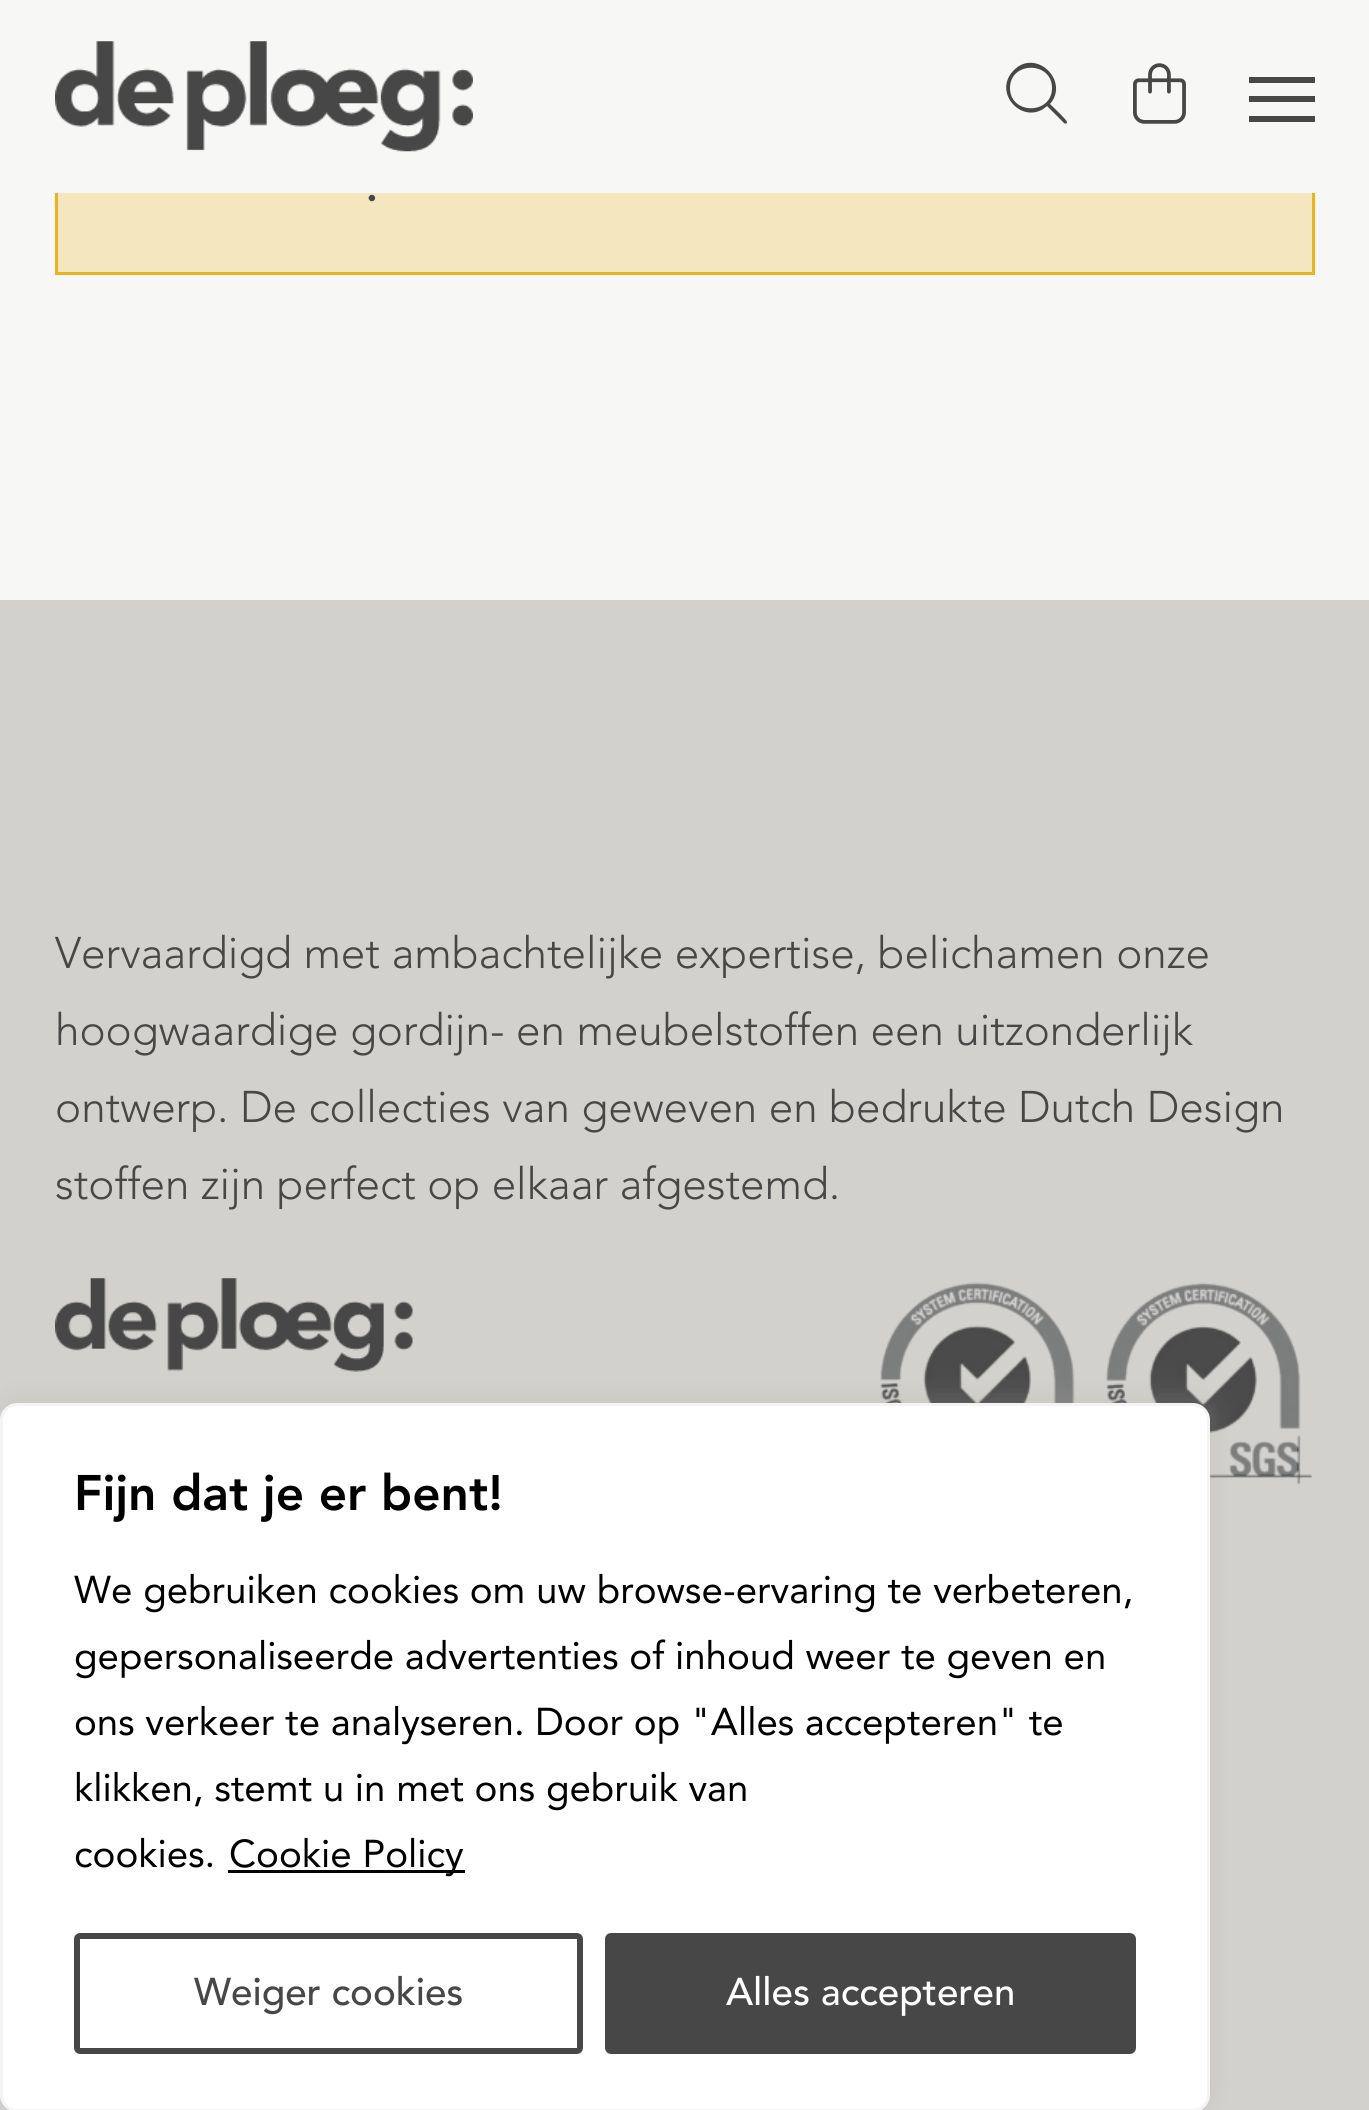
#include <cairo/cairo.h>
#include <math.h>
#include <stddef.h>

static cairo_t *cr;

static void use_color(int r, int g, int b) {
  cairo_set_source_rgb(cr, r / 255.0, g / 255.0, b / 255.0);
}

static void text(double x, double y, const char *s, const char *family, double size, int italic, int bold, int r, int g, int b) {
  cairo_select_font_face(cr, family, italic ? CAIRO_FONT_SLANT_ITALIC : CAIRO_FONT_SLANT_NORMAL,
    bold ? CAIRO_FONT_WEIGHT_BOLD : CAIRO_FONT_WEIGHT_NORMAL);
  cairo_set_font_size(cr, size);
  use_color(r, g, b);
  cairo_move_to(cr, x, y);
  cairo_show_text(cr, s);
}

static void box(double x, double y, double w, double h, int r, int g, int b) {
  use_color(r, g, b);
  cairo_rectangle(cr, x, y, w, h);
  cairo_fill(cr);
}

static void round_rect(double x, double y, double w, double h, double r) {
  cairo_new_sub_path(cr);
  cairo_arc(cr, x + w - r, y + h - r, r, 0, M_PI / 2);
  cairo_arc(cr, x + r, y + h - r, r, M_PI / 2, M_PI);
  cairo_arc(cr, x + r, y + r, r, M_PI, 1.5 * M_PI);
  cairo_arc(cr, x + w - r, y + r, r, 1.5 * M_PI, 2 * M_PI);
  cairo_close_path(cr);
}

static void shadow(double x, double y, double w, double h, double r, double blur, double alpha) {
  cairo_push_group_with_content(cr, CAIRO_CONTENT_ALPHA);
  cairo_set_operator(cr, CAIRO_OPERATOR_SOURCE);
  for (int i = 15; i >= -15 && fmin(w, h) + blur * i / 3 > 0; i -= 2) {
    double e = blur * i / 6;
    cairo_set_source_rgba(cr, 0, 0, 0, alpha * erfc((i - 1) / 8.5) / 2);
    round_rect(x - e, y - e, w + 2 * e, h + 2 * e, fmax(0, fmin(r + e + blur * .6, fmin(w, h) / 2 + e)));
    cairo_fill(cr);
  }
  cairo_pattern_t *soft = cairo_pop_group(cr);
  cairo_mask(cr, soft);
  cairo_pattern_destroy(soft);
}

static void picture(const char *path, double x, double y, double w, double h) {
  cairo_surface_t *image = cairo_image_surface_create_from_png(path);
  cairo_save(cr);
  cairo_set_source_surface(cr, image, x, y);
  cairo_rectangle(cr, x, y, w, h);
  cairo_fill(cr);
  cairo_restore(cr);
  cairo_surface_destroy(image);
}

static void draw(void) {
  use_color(247, 247, 245);
  cairo_paint(cr);
  box(58, 193, 1254, 79, 244, 231, 191);
  cairo_rectangle(cr, 56.5, 18.5, 1257, 255);
  use_color(234, 179, 31);
  cairo_set_line_width(cr, 3);
  cairo_stroke(cr);
  box(55, 17, 1260, 176, 247, 247, 245);
  picture("img_01.png", 55, 41, 418, 111);
  use_color(72, 71, 71);
  cairo_new_path(cr);
  cairo_move_to(cr, 1052, 88);
  cairo_curve_to(cr, 1052, 61, 1010, 61, 1010, 88);
  cairo_curve_to(cr, 1010, 115, 1052, 115, 1052, 88);
  cairo_close_path(cr);
  cairo_move_to(cr, 1047, 106);
  cairo_curve_to(cr, 1024, 127, 991, 93, 1014, 70);
  cairo_curve_to(cr, 1036, 48, 1070, 81, 1050, 104);
  cairo_curve_to(cr, 1052, 106, 1067, 120, 1067, 122);
  cairo_curve_to(cr, 1067, 124, 1065, 124, 1064, 123);
  cairo_close_path(cr);
  cairo_fill(cr);
  picture("img_02.png", 1133, 63, 53, 61);
  box(1249, 77, 66, 6, 72, 71, 71);
  box(1249, 96, 66, 6, 72, 71, 71);
  box(1249, 116, 66, 6, 72, 71, 71);
  box(0, 600, 1369, 1510, 211, 209, 205);
  picture("img_03.png", 55, 1278, 358, 94);
  picture("img_04.png", 880, 1282, 432, 203);
  use_color(172, 171, 171);
  shadow(0, 1400, 1210, 709, 17, 14, 0.3);
  use_color(255, 255, 255);
  round_rect(1.5, 1404.5, 1207, 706, 15.5);
  cairo_fill_preserve(cr);
  use_color(244, 244, 244);
  cairo_stroke(cr);
  box(228, 1870, 237, 3, 0, 0, 0);
  round_rect(77, 1936, 503, 115, 3);
  use_color(72, 71, 71);
  cairo_set_line_width(cr, 6);
  cairo_stroke(cr);
  round_rect(608, 1936, 525, 115, 3);
  cairo_fill_preserve(cr);
  cairo_stroke(cr);
  text(365, 201, ".", "Avenir Medium", 49.5, 0, 0, 72, 71, 71);
  text(55, 968, "Vervaardigd met ambachtelijke expertise, belichamen onze", "Avenir Light", 44, 0, 0, 72, 71, 71);
  text(55, 1045, "hoogwaardige gordijn- en meubelstoffen een uitzonderlijk", "Avenir Light", 44, 0, 0, 72, 71, 71);
  text(55, 1122, "ontwerp. De collecties van geweven en bedrukte Dutch Design", "Avenir Light", 44, 0, 0, 72, 71, 71);
  text(55, 1199, "stoffen zijn perfect op elkaar afgestemd.", "Avenir Light", 44, 0, 0, 72, 71, 71);
  text(74, 1510, "Fijn dat je er bent!", "Avenir Black", 49.5, 0, 0, 0, 0, 0);
  text(74, 1603, "We gebruiken cookies om uw browse-ervaring te verbeteren,", "Avenir", 38.5, 0, 0, 0, 0, 0);
  text(74, 1669, "gepersonaliseerde advertenties of inhoud weer te geven en", "Avenir", 38.5, 0, 0, 0, 0, 0);
  text(74, 1735, "ons verkeer te analyseren. Door op \"Alles accepteren\" te", "Avenir", 38.5, 0, 0, 0, 0, 0);
  text(74, 1801, "klikken, stemt u in met ons gebruik van", "Avenir", 38.5, 0, 0, 0, 0, 0);
  text(74, 1867, "cookies.", "Avenir", 38.5, 0, 0, 0, 0, 0);
  text(229, 1867, "Cookie Policy", "Avenir", 38.5, 0, 0, 0, 0, 0);
  text(194, 2005, "Weiger cookies", "Avenir Medium", 38.5, 0, 0, 72, 71, 71);
  text(726, 2005, "Alles accepteren", "Avenir Medium", 38.5, 0, 0, 255, 255, 255);
}

int main(void) {
  cairo_surface_t *surface = cairo_image_surface_create(CAIRO_FORMAT_RGB24, 1369, 2110);
  cr = cairo_create(surface);
  cairo_font_options_t *options = cairo_font_options_create();
  cairo_font_options_set_hint_metrics(options, CAIRO_HINT_METRICS_OFF);
  cairo_font_options_set_hint_style(options, CAIRO_HINT_STYLE_NONE);
  cairo_set_font_options(cr, options);
  cairo_set_miter_limit(cr, 4);
  draw();
  cairo_surface_write_to_png(surface, "out.png");
  cairo_font_options_destroy(options);
  cairo_destroy(cr);
  cairo_surface_destroy(surface);
  return 0;
}
